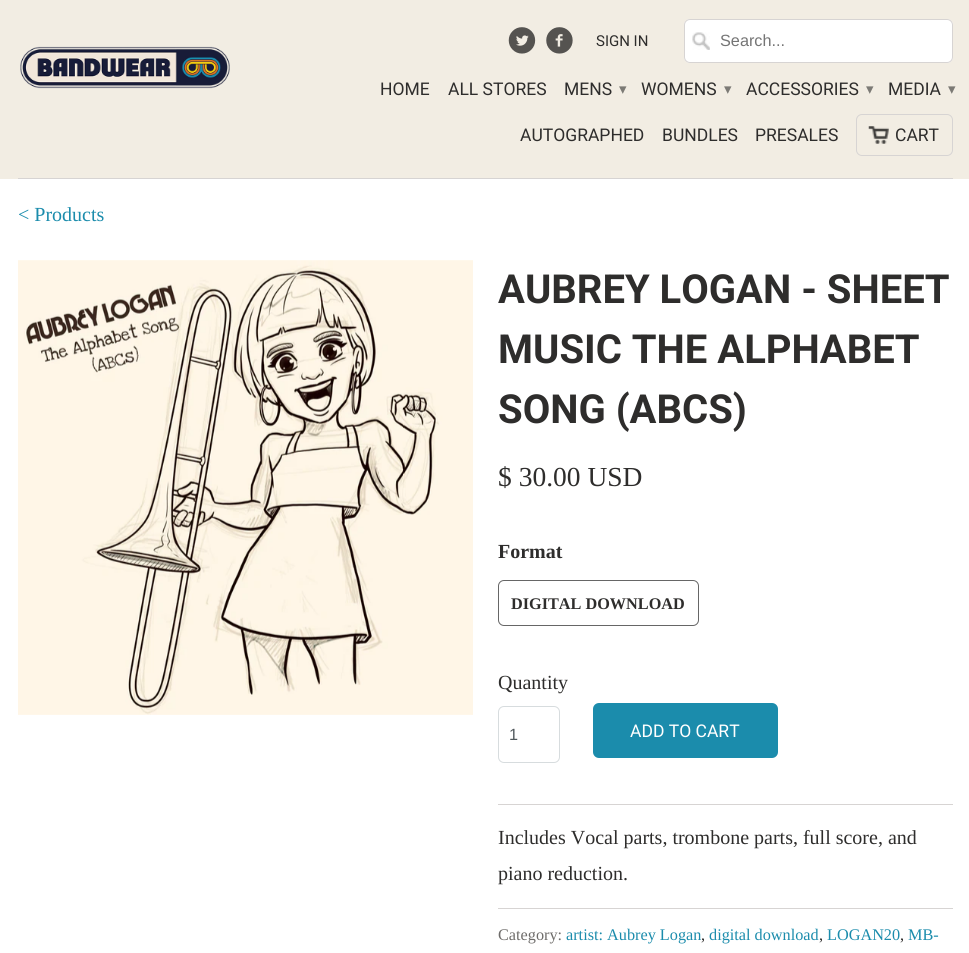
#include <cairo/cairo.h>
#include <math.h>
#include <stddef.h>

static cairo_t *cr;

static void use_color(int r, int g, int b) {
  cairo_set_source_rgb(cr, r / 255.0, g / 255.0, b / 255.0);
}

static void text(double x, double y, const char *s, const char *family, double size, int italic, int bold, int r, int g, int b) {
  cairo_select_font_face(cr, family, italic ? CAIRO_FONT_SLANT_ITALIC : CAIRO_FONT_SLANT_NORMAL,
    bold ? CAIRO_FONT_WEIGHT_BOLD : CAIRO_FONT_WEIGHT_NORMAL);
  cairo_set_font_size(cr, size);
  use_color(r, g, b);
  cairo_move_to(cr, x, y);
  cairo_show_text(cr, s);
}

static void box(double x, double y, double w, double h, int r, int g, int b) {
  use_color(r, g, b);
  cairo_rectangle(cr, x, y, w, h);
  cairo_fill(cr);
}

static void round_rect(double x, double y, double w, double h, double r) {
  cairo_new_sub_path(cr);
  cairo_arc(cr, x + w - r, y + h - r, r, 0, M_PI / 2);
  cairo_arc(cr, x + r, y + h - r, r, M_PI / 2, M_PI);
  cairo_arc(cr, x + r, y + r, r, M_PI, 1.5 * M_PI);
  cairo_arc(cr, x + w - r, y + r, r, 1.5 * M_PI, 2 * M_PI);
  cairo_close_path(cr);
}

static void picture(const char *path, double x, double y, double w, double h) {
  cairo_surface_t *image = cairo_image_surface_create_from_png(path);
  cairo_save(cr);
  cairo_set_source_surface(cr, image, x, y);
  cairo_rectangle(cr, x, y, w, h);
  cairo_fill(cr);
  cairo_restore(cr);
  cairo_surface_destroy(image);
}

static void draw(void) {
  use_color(255, 255, 255);
  cairo_paint(cr);
  box(0, 0, 969, 179, 242, 237, 227);
  box(18, 178, 935, 1, 215, 212, 211);
  picture("img_01.png", 20, 46, 210, 43);
  picture("img_02.png", 508, 27, 28, 27);
  picture("img_03.png", 546, 27, 27, 27);
  use_color(255, 255, 255);
  round_rect(684, 19, 269, 44, 6);
  cairo_fill(cr);
  picture("img_04.png", 692, 32, 18, 18);
  round_rect(684.5, 19.5, 268, 43, 5.5);
  use_color(215, 212, 211);
  cairo_set_line_width(cr, 1);
  cairo_stroke(cr);
  picture("img_05.png", 868, 126, 21, 18);
  round_rect(856.5, 114.5, 96, 41, 5.5);
  cairo_stroke(cr);
  picture("img_06.png", 18, 260, 455, 455);
  round_rect(498.5, 580.5, 200, 45, 5.5);
  use_color(102, 102, 102);
  cairo_stroke(cr);
  round_rect(498.5, 706.5, 61, 56, 5.5);
  use_color(215, 220, 222);
  cairo_stroke(cr);
  use_color(27, 140, 172);
  round_rect(593, 703, 185, 55, 6);
  cairo_fill(cr);
  box(498, 804, 455, 1, 215, 212, 211);
  box(498, 908, 455, 1, 215, 212, 211);
  text(596, 46, "SIGN IN", "Roboto", 15, 0, 0, 46, 45, 44);
  text(720, 46, "Search...", "Liberation Sans", 16.25, 0, 0, 117, 117, 117);
  text(380, 95, "HOME", "Roboto", 17.5, 0, 0, 46, 45, 44);
  text(448, 95, "ALL STORES", "Roboto", 17.5, 0, 0, 46, 45, 44);
  text(564, 95, "MENS", "Roboto", 17.5, 0, 0, 46, 45, 44);
  text(619, 94, "▾", "DejaVu Sans", 15, 0, 0, 124, 122, 117);
  text(641, 95, "WOMENS", "Roboto", 17.5, 0, 0, 46, 45, 44);
  text(724, 94, "▾", "DejaVu Sans", 15, 0, 0, 124, 122, 117);
  text(746, 95, "ACCESSORIES", "Roboto", 17.5, 0, 0, 46, 45, 44);
  text(866, 94, "▾", "DejaVu Sans", 15, 0, 0, 124, 122, 117);
  text(888, 95, "MEDIA", "Roboto", 17.5, 0, 0, 46, 45, 44);
  text(948, 94, "▾", "DejaVu Sans", 15, 0, 0, 124, 122, 117);
  text(520, 141, "AUTOGRAPHED", "Roboto", 17.5, 0, 0, 46, 45, 44);
  text(662, 141, "BUNDLES", "Roboto", 17.5, 0, 0, 46, 45, 44);
  text(755, 141, "PRESALES", "Roboto", 17.5, 0, 0, 46, 45, 44);
  text(895, 141, "CART", "Roboto", 17.5, 0, 0, 46, 45, 44);
  text(18, 221, "< Products", "Liberation Serif", 20, 0, 0, 27, 140, 172);
  text(498, 303, "AUBREY LOGAN - SHEET", "Roboto", 40, 0, 1, 46, 45, 44);
  text(498, 363, "MUSIC THE ALPHABET", "Roboto", 40, 0, 1, 46, 45, 44);
  text(498, 423, "SONG (ABCS)", "Roboto", 40, 0, 1, 46, 45, 44);
  text(498, 486, "$ 30.00 USD", "Liberation Serif", 27.5, 0, 0, 46, 45, 44);
  text(498, 558, "Format", "Liberation Serif", 20, 0, 1, 46, 45, 44);
  text(511, 609, "DIGITAL DOWNLOAD", "Liberation Serif", 16.25, 0, 1, 46, 45, 44);
  text(498, 689, "Quantity", "Liberation Serif", 20, 0, 0, 46, 45, 44);
  text(509, 740, "1", "Liberation Sans", 16.25, 0, 0, 81, 89, 93);
  text(630, 737, "ADD TO CART", "Roboto", 17.5, 0, 0, 255, 255, 255);
  text(498, 844, "Includes Vocal parts, trombone parts, full score, and", "Liberation Serif", 20, 0, 0, 46, 45, 44);
  text(498, 880, "piano reduction.", "Liberation Serif", 20, 0, 0, 46, 45, 44);
  text(498, 940, "Category:", "Liberation Serif", 16.25, 0, 0, 110, 108, 106);
  text(566, 940, "artist: Aubrey Logan", "Liberation Serif", 16.25, 0, 0, 27, 140, 172);
  text(701, 940, ",", "Liberation Serif", 16.25, 0, 0, 46, 45, 44);
  text(709, 940, "digital download", "Liberation Serif", 16.25, 0, 0, 27, 140, 172);
  text(819, 940, ",", "Liberation Serif", 16.25, 0, 0, 46, 45, 44);
  text(827, 940, "LOGAN20", "Liberation Serif", 16.25, 0, 0, 27, 140, 172);
  text(900, 940, ",", "Liberation Serif", 16.25, 0, 0, 46, 45, 44);
  text(908, 940, "MB-", "Liberation Serif", 16.25, 0, 0, 27, 140, 172);
}

int main(void) {
  cairo_surface_t *surface = cairo_image_surface_create(CAIRO_FORMAT_RGB24, 969, 953);
  cr = cairo_create(surface);
  cairo_font_options_t *options = cairo_font_options_create();
  cairo_font_options_set_hint_metrics(options, CAIRO_HINT_METRICS_OFF);
  cairo_font_options_set_hint_style(options, CAIRO_HINT_STYLE_NONE);
  cairo_set_font_options(cr, options);
  cairo_set_miter_limit(cr, 4);
  draw();
  cairo_surface_write_to_png(surface, "out.png");
  cairo_font_options_destroy(options);
  cairo_destroy(cr);
  cairo_surface_destroy(surface);
  return 0;
}
